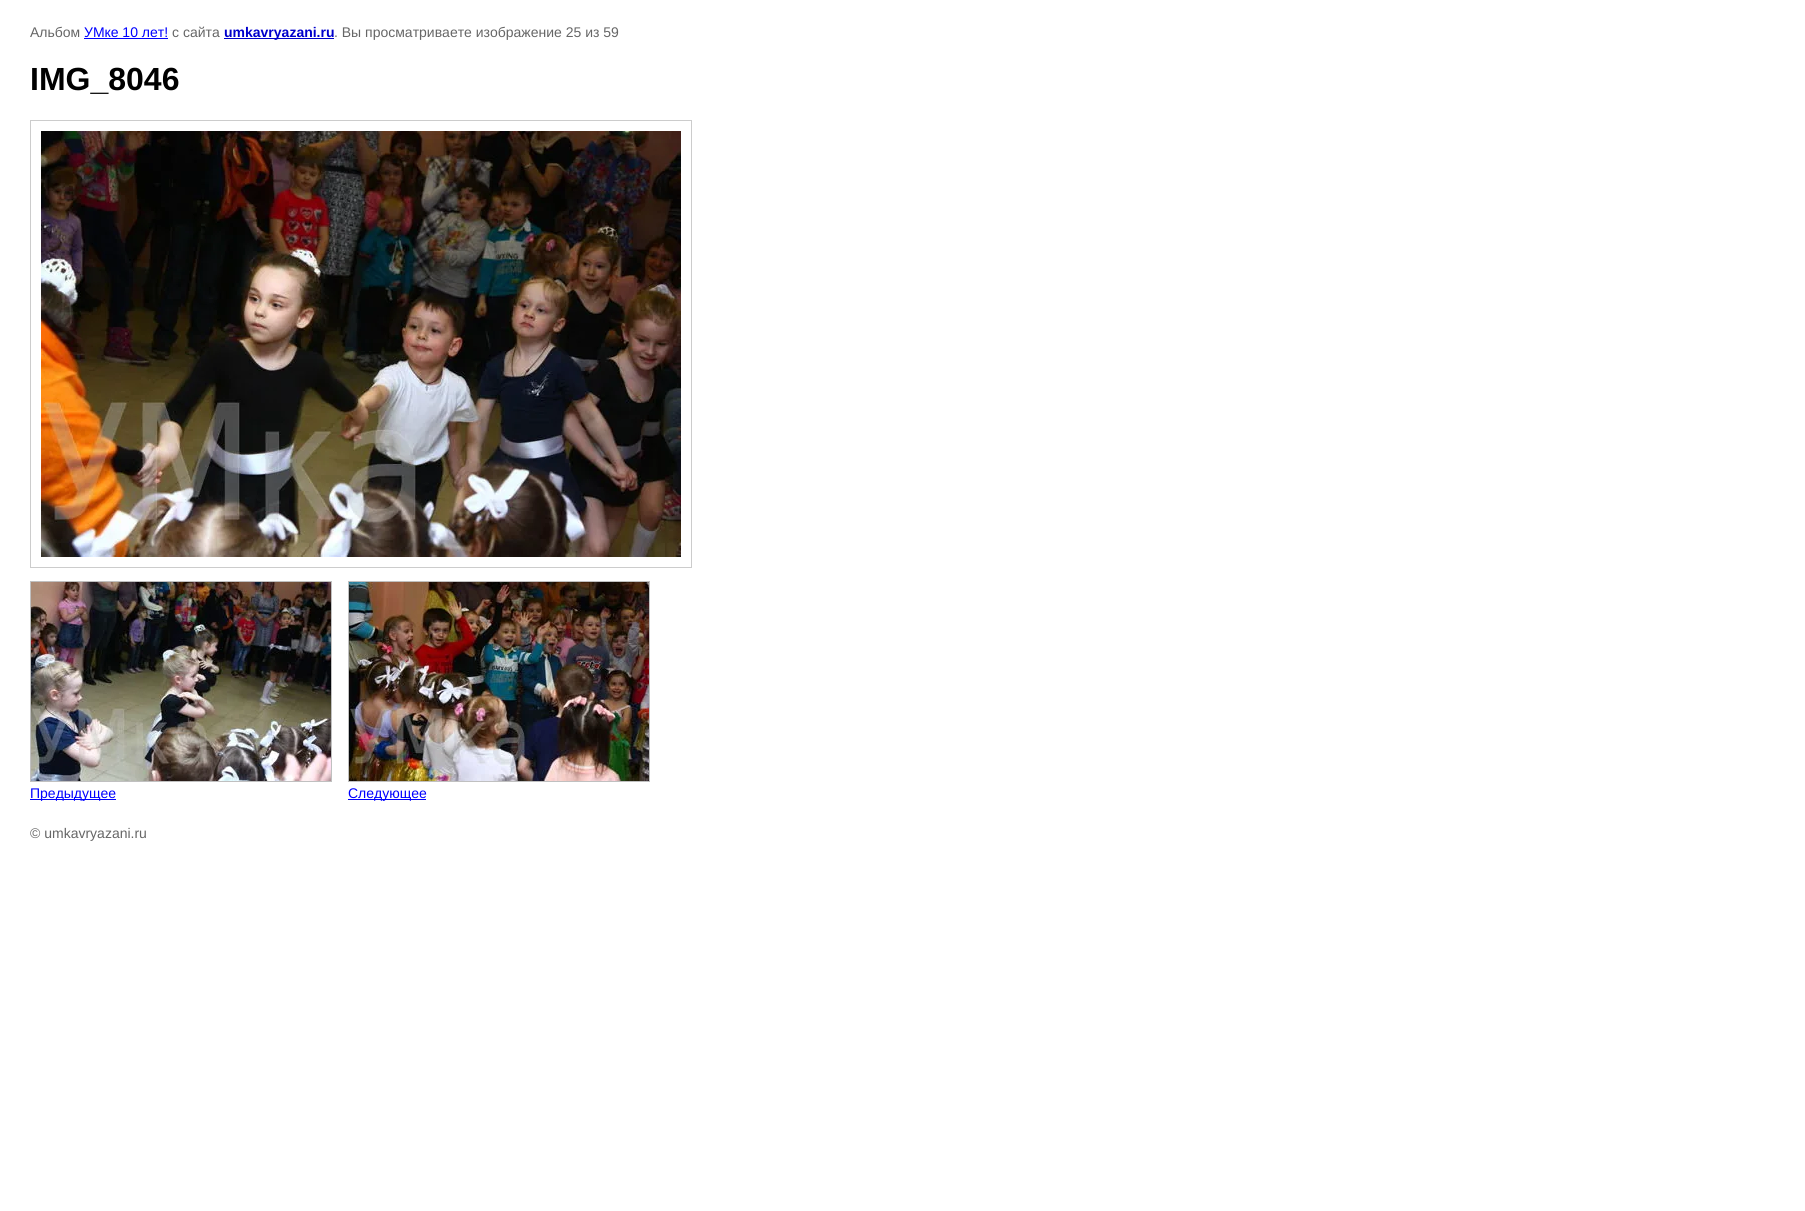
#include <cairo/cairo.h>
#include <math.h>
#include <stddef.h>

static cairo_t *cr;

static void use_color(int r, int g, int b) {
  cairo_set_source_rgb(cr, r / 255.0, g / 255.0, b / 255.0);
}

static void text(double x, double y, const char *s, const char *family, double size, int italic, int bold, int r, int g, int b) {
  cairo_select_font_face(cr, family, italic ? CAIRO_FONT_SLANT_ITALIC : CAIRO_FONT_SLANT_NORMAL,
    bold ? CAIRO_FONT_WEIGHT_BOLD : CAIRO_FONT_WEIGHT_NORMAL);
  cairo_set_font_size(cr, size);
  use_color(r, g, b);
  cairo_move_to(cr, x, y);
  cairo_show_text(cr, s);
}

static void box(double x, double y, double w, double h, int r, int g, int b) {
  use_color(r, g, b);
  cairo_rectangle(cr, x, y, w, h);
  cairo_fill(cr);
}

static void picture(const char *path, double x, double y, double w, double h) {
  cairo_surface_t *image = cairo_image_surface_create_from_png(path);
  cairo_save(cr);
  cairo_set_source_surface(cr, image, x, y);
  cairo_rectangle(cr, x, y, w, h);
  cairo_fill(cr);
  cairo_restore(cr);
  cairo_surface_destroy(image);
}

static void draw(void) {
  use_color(255, 255, 255);
  cairo_paint(cr);
  box(84, 38, 84, 1, 0, 0, 255);
  box(224, 38, 110, 1, 0, 0, 204);
  cairo_rectangle(cr, 30.5, 120.5, 661, 447);
  use_color(204, 204, 204);
  cairo_set_line_width(cr, 1);
  cairo_stroke(cr);
  picture("img_01.png", 41, 131, 640, 426);
  cairo_rectangle(cr, 30.5, 581.5, 301, 200);
  use_color(192, 192, 192);
  cairo_stroke(cr);
  picture("img_02.png", 31, 582, 300, 199);
  box(30, 799, 86, 1, 0, 0, 255);
  cairo_rectangle(cr, 348.5, 581.5, 301, 200);
  use_color(192, 192, 192);
  cairo_stroke(cr);
  picture("img_03.png", 349, 582, 300, 199);
  box(348, 799, 78, 1, 0, 0, 255);
  text(30, 37, "Альбом", "Liberation Sans", 14, 0, 0, 102, 102, 102);
  text(84, 37, "УМке 10 лет!", "Liberation Sans", 14, 0, 0, 0, 0, 255);
  text(172, 37, "с сайта", "Liberation Sans", 14, 0, 0, 102, 102, 102);
  text(224, 37, "umkavryazani.ru", "Liberation Sans", 14, 0, 1, 0, 0, 204);
  text(334, 37, ". Вы просматриваете изображение 25 из 59", "Liberation Sans", 14, 0, 0, 102, 102, 102);
  text(30, 90, "IMG_8046", "Liberation Sans", 32, 0, 1, 0, 0, 0);
  text(30, 798, "Предыдущее", "Liberation Sans", 14, 0, 0, 0, 0, 255);
  text(348, 798, "Следующее", "Liberation Sans", 14, 0, 0, 0, 0, 255);
  text(30, 838, "© umkavryazani.ru", "Liberation Sans", 14, 0, 0, 102, 102, 102);
}

int main(void) {
  cairo_surface_t *surface = cairo_image_surface_create(CAIRO_FORMAT_RGB24, 1805, 1211);
  cr = cairo_create(surface);
  cairo_font_options_t *options = cairo_font_options_create();
  cairo_font_options_set_hint_metrics(options, CAIRO_HINT_METRICS_OFF);
  cairo_font_options_set_hint_style(options, CAIRO_HINT_STYLE_NONE);
  cairo_set_font_options(cr, options);
  cairo_set_miter_limit(cr, 4);
  draw();
  cairo_surface_write_to_png(surface, "out.png");
  cairo_font_options_destroy(options);
  cairo_destroy(cr);
  cairo_surface_destroy(surface);
  return 0;
}
